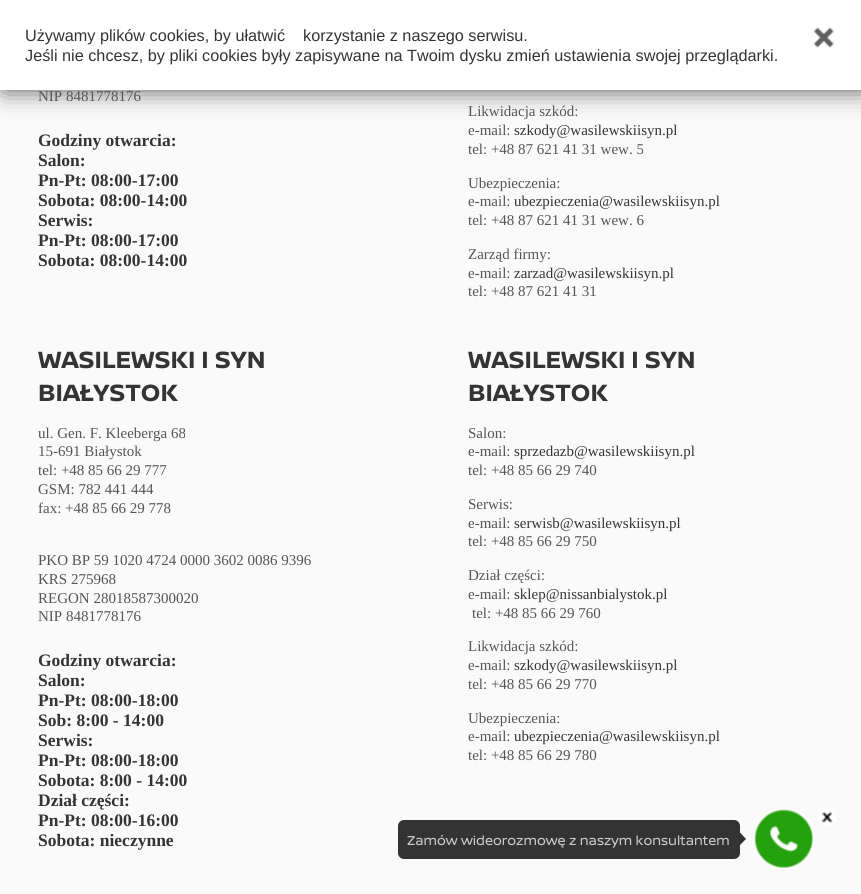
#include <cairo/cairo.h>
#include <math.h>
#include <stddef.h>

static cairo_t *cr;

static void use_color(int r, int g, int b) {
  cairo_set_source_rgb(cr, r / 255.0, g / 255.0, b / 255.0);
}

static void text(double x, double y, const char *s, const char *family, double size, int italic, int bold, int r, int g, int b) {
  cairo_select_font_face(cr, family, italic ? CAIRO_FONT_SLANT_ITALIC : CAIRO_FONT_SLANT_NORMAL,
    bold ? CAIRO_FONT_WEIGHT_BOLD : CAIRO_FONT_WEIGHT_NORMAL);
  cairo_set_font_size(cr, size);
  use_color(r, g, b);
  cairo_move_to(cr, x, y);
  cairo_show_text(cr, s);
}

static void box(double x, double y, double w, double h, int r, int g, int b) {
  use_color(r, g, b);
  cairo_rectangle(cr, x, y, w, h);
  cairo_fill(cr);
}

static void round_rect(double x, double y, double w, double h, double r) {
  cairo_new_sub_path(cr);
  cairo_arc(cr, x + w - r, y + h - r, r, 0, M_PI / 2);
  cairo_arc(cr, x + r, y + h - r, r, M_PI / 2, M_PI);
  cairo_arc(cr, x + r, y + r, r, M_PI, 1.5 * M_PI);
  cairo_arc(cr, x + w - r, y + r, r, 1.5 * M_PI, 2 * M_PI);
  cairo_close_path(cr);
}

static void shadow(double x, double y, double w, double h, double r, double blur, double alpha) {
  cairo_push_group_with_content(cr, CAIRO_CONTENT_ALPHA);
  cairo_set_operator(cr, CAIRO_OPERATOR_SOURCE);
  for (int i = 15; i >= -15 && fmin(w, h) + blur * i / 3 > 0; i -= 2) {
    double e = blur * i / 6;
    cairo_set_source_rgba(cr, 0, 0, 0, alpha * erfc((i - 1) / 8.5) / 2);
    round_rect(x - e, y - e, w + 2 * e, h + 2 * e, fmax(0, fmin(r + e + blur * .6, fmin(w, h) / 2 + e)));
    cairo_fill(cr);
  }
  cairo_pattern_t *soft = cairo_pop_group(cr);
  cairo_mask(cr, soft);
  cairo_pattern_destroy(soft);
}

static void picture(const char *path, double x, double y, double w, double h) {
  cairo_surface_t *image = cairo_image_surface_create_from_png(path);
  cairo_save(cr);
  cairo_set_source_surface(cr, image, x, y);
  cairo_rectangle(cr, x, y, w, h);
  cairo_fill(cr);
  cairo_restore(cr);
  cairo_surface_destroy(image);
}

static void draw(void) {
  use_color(250, 250, 250);
  cairo_paint(cr);
  use_color(85, 85, 85);
  shadow(4, 0, 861, 90, 0, 12.5, 1);
  box(0, 0, 861, 90, 255, 255, 255);
  picture("img_01.png", 813, 27, 21, 21);
  picture("img_02.png", 753, 808, 61, 61);
  picture("img_03.png", 818, 808, 18, 18);
  use_color(51, 51, 51);
  round_rect(398, 820, 342, 39, 6);
  cairo_fill(cr);
  cairo_new_path(cr);
  cairo_move_to(cr, 740, 845);
  cairo_line_to(cr, 740, 832.5);
  cairo_line_to(cr, 746, 839);
  cairo_close_path(cr);
  cairo_fill(cr);
  text(25, 41, "Używamy plików cookies, by ułatwić", "Liberation Sans", 16.25, 0, 0, 52, 52, 52);
  text(303, 41, "korzystanie z naszego serwisu.", "Liberation Sans", 16.25, 0, 0, 52, 52, 52);
  text(25, 61, "Jeśli nie chcesz, by pliki cookies były zapisywane na Twoim dysku zmień ustawienia swojej przeglądarki.", "Liberation Sans", 16.25, 0, 0, 52, 52, 52);
  text(38, 101, "NIP 8481778176", "Liberation Serif", 15, 0, 0, 85, 85, 85);
  text(38, 146, "Godziny otwarcia:", "Liberation Serif", 17.5, 0, 1, 52, 52, 52);
  text(38, 166, "Salon:", "Liberation Serif", 17.5, 0, 1, 52, 52, 52);
  text(38, 186, "Pn-Pt: 08:00-17:00", "Liberation Serif", 17.5, 0, 1, 52, 52, 52);
  text(38, 206, "Sobota: 08:00-14:00", "Liberation Serif", 17.5, 0, 1, 52, 52, 52);
  text(38, 226, "Serwis:", "Liberation Serif", 17.5, 0, 1, 52, 52, 52);
  text(38, 246, "Pn-Pt: 08:00-17:00", "Liberation Serif", 17.5, 0, 1, 52, 52, 52);
  text(38, 266, "Sobota: 08:00-14:00", "Liberation Serif", 17.5, 0, 1, 52, 52, 52);
  text(468, 116, "Likwidacja szkód:", "Liberation Serif", 15, 0, 0, 85, 85, 85);
  text(468, 135, "e-mail:", "Liberation Serif", 15, 0, 0, 85, 85, 85);
  text(514, 135, "szkody@wasilewskiisyn.pl", "Liberation Serif", 15, 0, 0, 52, 52, 52);
  text(468, 154, "tel: +48 87 621 41 31 wew. 5", "Liberation Serif", 15, 0, 0, 85, 85, 85);
  text(468, 188, "Ubezpieczenia:", "Liberation Serif", 15, 0, 0, 85, 85, 85);
  text(468, 206, "e-mail:", "Liberation Serif", 15, 0, 0, 85, 85, 85);
  text(514, 206, "ubezpieczenia@wasilewskiisyn.pl", "Liberation Serif", 15, 0, 0, 52, 52, 52);
  text(468, 225, "tel: +48 87 621 41 31 wew. 6", "Liberation Serif", 15, 0, 0, 85, 85, 85);
  text(468, 259, "Zarząd firmy:", "Liberation Serif", 15, 0, 0, 85, 85, 85);
  text(468, 278, "e-mail:", "Liberation Serif", 15, 0, 0, 85, 85, 85);
  text(514, 278, "zarzad@wasilewskiisyn.pl", "Liberation Serif", 15, 0, 0, 52, 52, 52);
  text(468, 296, "tel: +48 87 621 41 31", "Liberation Serif", 15, 0, 0, 85, 85, 85);
  text(38, 368, "WASILEWSKI I SYN", "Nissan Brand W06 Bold", 25, 0, 1, 52, 52, 52);
  text(38, 401, "BIAŁYSTOK", "Nissan Brand W06 Bold", 25, 0, 1, 52, 52, 52);
  text(38, 438, "ul. Gen. F. Kleeberga 68", "Liberation Serif", 15, 0, 0, 85, 85, 85);
  text(38, 456, "15-691 Białystok", "Liberation Serif", 15, 0, 0, 85, 85, 85);
  text(38, 475, "tel: +48 85 66 29 777", "Liberation Serif", 15, 0, 0, 85, 85, 85);
  text(38, 494, "GSM: 782 441 444", "Liberation Serif", 15, 0, 0, 85, 85, 85);
  text(38, 513, "fax: +48 85 66 29 778", "Liberation Serif", 15, 0, 0, 85, 85, 85);
  text(38, 565, "PKO BP 59 1020 4724 0000 3602 0086 9396", "Liberation Serif", 15, 0, 0, 85, 85, 85);
  text(38, 584, "KRS 275968", "Liberation Serif", 15, 0, 0, 85, 85, 85);
  text(38, 603, "REGON 28018587300020", "Liberation Serif", 15, 0, 0, 85, 85, 85);
  text(38, 621, "NIP 8481778176", "Liberation Serif", 15, 0, 0, 85, 85, 85);
  text(38, 666, "Godziny otwarcia:", "Liberation Serif", 17.5, 0, 1, 52, 52, 52);
  text(38, 686, "Salon:", "Liberation Serif", 17.5, 0, 1, 52, 52, 52);
  text(38, 706, "Pn-Pt: 08:00-18:00", "Liberation Serif", 17.5, 0, 1, 52, 52, 52);
  text(38, 726, "Sob: 8:00 - 14:00", "Liberation Serif", 17.5, 0, 1, 52, 52, 52);
  text(38, 746, "Serwis:", "Liberation Serif", 17.5, 0, 1, 52, 52, 52);
  text(38, 766, "Pn-Pt: 08:00-18:00", "Liberation Serif", 17.5, 0, 1, 52, 52, 52);
  text(38, 786, "Sobota: 8:00 - 14:00", "Liberation Serif", 17.5, 0, 1, 52, 52, 52);
  text(38, 806, "Dział części:", "Liberation Serif", 17.5, 0, 1, 52, 52, 52);
  text(38, 826, "Pn-Pt: 08:00-16:00", "Liberation Serif", 17.5, 0, 1, 52, 52, 52);
  text(38, 846, "Sobota: nieczynne", "Liberation Serif", 17.5, 0, 1, 52, 52, 52);
  text(468, 368, "WASILEWSKI I SYN", "Nissan Brand W06 Bold", 25, 0, 1, 52, 52, 52);
  text(468, 401, "BIAŁYSTOK", "Nissan Brand W06 Bold", 25, 0, 1, 52, 52, 52);
  text(468, 438, "Salon:", "Liberation Serif", 15, 0, 0, 85, 85, 85);
  text(468, 456, "e-mail:", "Liberation Serif", 15, 0, 0, 85, 85, 85);
  text(514, 456, "sprzedazb@wasilewskiisyn.pl", "Liberation Serif", 15, 0, 0, 52, 52, 52);
  text(468, 475, "tel: +48 85 66 29 740", "Liberation Serif", 15, 0, 0, 85, 85, 85);
  text(468, 509, "Serwis:", "Liberation Serif", 15, 0, 0, 85, 85, 85);
  text(468, 528, "e-mail:", "Liberation Serif", 15, 0, 0, 85, 85, 85);
  text(514, 528, "serwisb@wasilewskiisyn.pl", "Liberation Serif", 15, 0, 0, 52, 52, 52);
  text(468, 546, "tel: +48 85 66 29 750", "Liberation Serif", 15, 0, 0, 85, 85, 85);
  text(468, 580, "Dział części:", "Liberation Serif", 15, 0, 0, 85, 85, 85);
  text(468, 599, "e-mail:", "Liberation Serif", 15, 0, 0, 85, 85, 85);
  text(514, 599, "sklep@nissanbialystok.pl", "Liberation Serif", 15, 0, 0, 52, 52, 52);
  text(472, 618, "tel: +48 85 66 29 760", "Liberation Serif", 15, 0, 0, 85, 85, 85);
  text(468, 651, "Likwidacja szkód:", "Liberation Serif", 15, 0, 0, 85, 85, 85);
  text(468, 670, "e-mail:", "Liberation Serif", 15, 0, 0, 85, 85, 85);
  text(514, 670, "szkody@wasilewskiisyn.pl", "Liberation Serif", 15, 0, 0, 52, 52, 52);
  text(468, 689, "tel: +48 85 66 29 770", "Liberation Serif", 15, 0, 0, 85, 85, 85);
  text(468, 723, "Ubezpieczenia:", "Liberation Serif", 15, 0, 0, 85, 85, 85);
  text(468, 741, "e-mail:", "Liberation Serif", 15, 0, 0, 85, 85, 85);
  text(514, 741, "ubezpieczenia@wasilewskiisyn.pl", "Liberation Serif", 15, 0, 0, 52, 52, 52);
  text(468, 760, "tel: +48 85 66 29 780", "Liberation Serif", 15, 0, 0, 85, 85, 85);
  text(407, 845, "Zamów wideorozmowę z naszym konsultantem", "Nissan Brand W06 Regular", 13.75, 0, 0, 204, 204, 204);
}

int main(void) {
  cairo_surface_t *surface = cairo_image_surface_create(CAIRO_FORMAT_RGB24, 861, 894);
  cr = cairo_create(surface);
  cairo_font_options_t *options = cairo_font_options_create();
  cairo_font_options_set_hint_metrics(options, CAIRO_HINT_METRICS_OFF);
  cairo_font_options_set_hint_style(options, CAIRO_HINT_STYLE_NONE);
  cairo_set_font_options(cr, options);
  cairo_set_miter_limit(cr, 4);
  draw();
  cairo_surface_write_to_png(surface, "out.png");
  cairo_font_options_destroy(options);
  cairo_destroy(cr);
  cairo_surface_destroy(surface);
  return 0;
}
